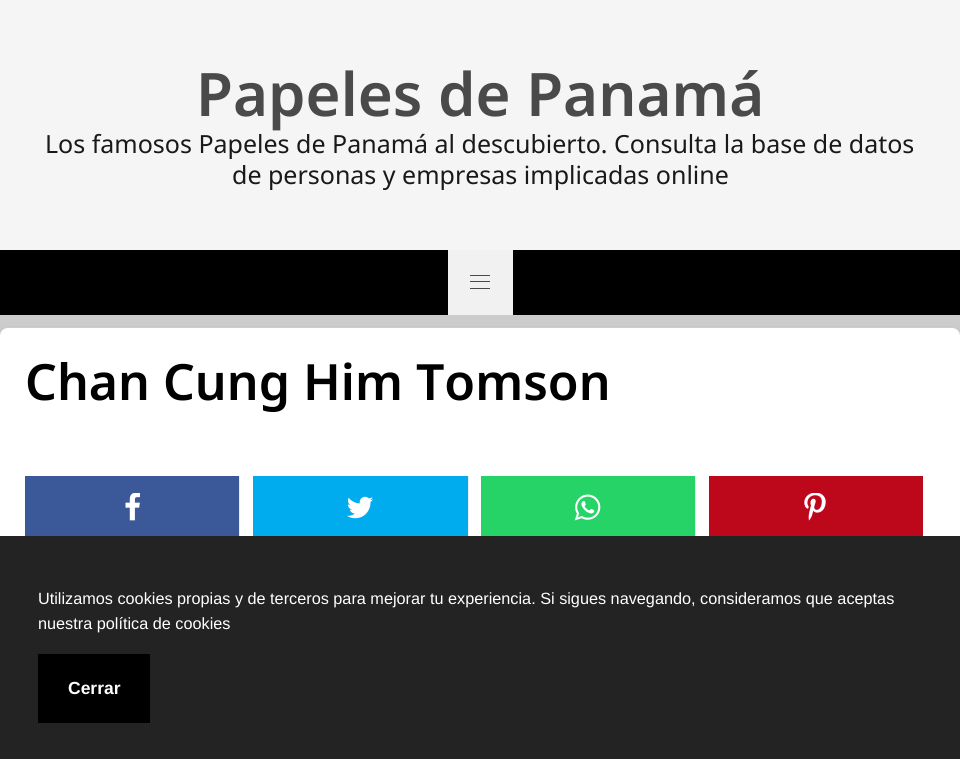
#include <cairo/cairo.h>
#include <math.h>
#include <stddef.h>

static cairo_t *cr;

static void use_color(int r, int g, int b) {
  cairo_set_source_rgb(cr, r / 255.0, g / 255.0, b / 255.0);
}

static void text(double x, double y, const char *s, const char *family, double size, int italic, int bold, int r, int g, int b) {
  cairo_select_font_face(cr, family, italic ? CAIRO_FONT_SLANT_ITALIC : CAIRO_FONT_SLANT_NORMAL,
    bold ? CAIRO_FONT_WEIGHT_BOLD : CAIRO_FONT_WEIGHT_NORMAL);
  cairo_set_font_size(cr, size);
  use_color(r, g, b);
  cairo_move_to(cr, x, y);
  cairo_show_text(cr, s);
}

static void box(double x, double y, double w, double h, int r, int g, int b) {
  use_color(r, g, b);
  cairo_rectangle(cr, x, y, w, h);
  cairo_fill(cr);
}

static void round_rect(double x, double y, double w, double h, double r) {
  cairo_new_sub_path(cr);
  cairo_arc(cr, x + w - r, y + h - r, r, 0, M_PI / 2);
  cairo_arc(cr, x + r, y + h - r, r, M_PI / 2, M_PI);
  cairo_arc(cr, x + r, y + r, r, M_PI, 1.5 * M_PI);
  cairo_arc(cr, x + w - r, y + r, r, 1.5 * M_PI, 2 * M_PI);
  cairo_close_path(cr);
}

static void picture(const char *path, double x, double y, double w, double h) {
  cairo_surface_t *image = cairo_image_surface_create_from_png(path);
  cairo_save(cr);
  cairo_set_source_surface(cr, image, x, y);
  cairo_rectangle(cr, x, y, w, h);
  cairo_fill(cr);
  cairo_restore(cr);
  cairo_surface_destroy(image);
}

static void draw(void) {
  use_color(245, 245, 245);
  cairo_paint(cr);
  box(0, 250, 960, 65, 0, 0, 0);
  box(448, 250, 65, 65, 241, 241, 241);
  box(470, 275, 20, 1, 74, 74, 74);
  box(470, 281, 20, 1, 74, 74, 74);
  box(470, 288, 20, 1, 74, 74, 74);
  box(0, 315, 960, 21, 204, 204, 204);
  round_rect(-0.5, 326.5, 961, 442, 8.5);
  use_color(200, 200, 200);
  cairo_set_line_width(cr, 1);
  cairo_stroke(cr);
  use_color(255, 255, 255);
  round_rect(0, 328, 960, 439, 8);
  cairo_fill(cr);
  box(25, 476, 214, 60, 59, 89, 152);
  box(239, 476, 1, 63, 237, 237, 237);
  picture("img_01.png", 125, 493, 15, 28);
  box(253, 476, 215, 60, 0, 172, 237);
  box(468, 476, 1, 63, 237, 237, 237);
  picture("img_02.png", 347, 496, 26, 23);
  box(481, 476, 214, 60, 37, 211, 102);
  box(695, 476, 1, 63, 237, 237, 237);
  picture("img_03.png", 574, 494, 27, 27);
  box(709, 476, 214, 60, 189, 8, 28);
  picture("img_04.png", 804, 493, 22, 28);
  box(0, 536, 960, 223, 35, 35, 35);
  box(38, 654, 112, 69, 0, 0, 0);
  text(196, 116, "Papeles de Panamá", "Noto Sans SemiBold", 60, 0, 0, 74, 74, 74);
  text(45, 153, "Los famosos Papeles de Panamá al descubierto. Consulta la base de datos", "Noto Sans", 25, 0, 0, 25, 25, 25);
  text(232, 184, "de personas y empresas implicadas online", "Noto Sans", 25, 0, 0, 25, 25, 25);
  text(25, 400, "Chan Cung Him Tomson", "Noto Sans SemiBold", 50, 0, 0, 0, 0, 0);
  text(38, 604, "Utilizamos cookies propias y de terceros para mejorar tu experiencia. Si sigues navegando, consideramos que aceptas", "Liberation Sans", 16.25, 0, 0, 255, 255, 255);
  text(38, 629, "nuestra política de cookies", "Liberation Sans", 16.25, 0, 0, 255, 255, 255);
  text(68, 694, "Cerrar", "Liberation Sans", 17.5, 0, 1, 255, 255, 255);
}

int main(void) {
  cairo_surface_t *surface = cairo_image_surface_create(CAIRO_FORMAT_RGB24, 960, 759);
  cr = cairo_create(surface);
  cairo_font_options_t *options = cairo_font_options_create();
  cairo_font_options_set_hint_metrics(options, CAIRO_HINT_METRICS_OFF);
  cairo_font_options_set_hint_style(options, CAIRO_HINT_STYLE_NONE);
  cairo_set_font_options(cr, options);
  cairo_set_miter_limit(cr, 4);
  draw();
  cairo_surface_write_to_png(surface, "out.png");
  cairo_font_options_destroy(options);
  cairo_destroy(cr);
  cairo_surface_destroy(surface);
  return 0;
}
